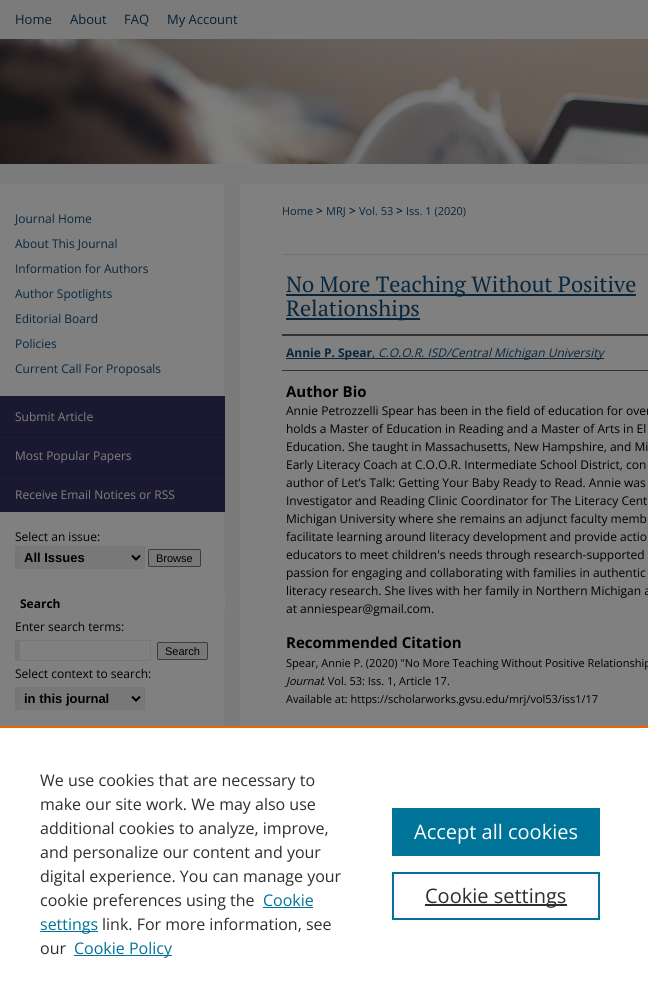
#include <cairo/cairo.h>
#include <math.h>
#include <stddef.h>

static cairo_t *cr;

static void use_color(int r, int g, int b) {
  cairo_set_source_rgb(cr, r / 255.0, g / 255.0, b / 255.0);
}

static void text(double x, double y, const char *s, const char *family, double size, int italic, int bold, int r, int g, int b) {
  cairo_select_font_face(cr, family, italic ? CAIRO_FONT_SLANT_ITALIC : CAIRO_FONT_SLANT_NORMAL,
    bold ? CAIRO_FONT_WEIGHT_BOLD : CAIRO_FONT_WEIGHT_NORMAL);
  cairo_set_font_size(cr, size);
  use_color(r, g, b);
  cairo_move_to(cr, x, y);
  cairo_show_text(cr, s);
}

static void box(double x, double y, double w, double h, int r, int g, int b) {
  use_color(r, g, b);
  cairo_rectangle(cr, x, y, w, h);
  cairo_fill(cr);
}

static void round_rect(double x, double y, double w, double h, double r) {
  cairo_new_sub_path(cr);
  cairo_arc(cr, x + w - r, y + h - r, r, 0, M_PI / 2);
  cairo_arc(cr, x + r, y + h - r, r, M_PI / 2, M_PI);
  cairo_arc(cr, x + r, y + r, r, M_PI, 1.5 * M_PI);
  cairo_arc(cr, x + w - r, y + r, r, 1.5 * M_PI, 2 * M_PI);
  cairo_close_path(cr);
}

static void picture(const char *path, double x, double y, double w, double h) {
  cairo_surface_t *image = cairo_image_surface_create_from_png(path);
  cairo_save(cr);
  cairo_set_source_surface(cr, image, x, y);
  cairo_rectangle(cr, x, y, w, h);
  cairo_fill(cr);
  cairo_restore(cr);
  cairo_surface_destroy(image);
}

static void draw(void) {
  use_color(123, 123, 123);
  cairo_paint(cr);
  picture("img_01.png", 0, 39, 648, 125);
  picture("img_02.png", 0, 184, 648, 542);
  box(0, 396, 225, 38, 27, 25, 49);
  box(224, 395, 1, 1, 128, 128, 128);
  box(0, 434, 225, 1, 22, 19, 44);
  box(0, 435, 225, 38, 27, 25, 49);
  box(0, 473, 225, 1, 22, 19, 44);
  box(0, 474, 225, 38, 27, 25, 49);
  box(20, 547, 124, 21, 120, 120, 120);
  box(15, 546, 130, 1, 118, 118, 118);
  box(144, 546, 1, 23, 118, 118, 118);
  box(15, 568, 130, 1, 118, 118, 118);
  box(15, 546, 5, 23, 118, 118, 118);
  cairo_new_path(cr);
  cairo_move_to(cr, 132, 555.5);
  cairo_line_to(cr, 136, 559.5);
  cairo_line_to(cr, 140, 555.5);
  use_color(0, 0, 0);
  cairo_stroke(cr);
  use_color(120, 120, 120);
  round_rect(148.5, 549.5, 52, 17, 1.5);
  cairo_fill_preserve(cr);
  use_color(59, 59, 59);
  cairo_set_line_width(cr, 1);
  cairo_stroke(cr);
  box(224, 595, 1, 17, 128, 128, 128);
  box(15, 640, 136, 1, 118, 118, 118);
  box(150, 640, 1, 21, 118, 118, 118);
  box(15, 660, 136, 1, 118, 118, 118);
  box(15, 640, 5, 21, 118, 118, 118);
  use_color(120, 120, 120);
  round_rect(157.5, 642.5, 50, 17, 1.5);
  cairo_fill_preserve(cr);
  use_color(59, 59, 59);
  cairo_stroke(cr);
  box(20, 688, 124, 21, 120, 120, 120);
  box(15, 687, 130, 1, 118, 118, 118);
  box(144, 687, 1, 23, 118, 118, 118);
  box(15, 709, 130, 1, 118, 118, 118);
  box(15, 687, 5, 23, 118, 118, 118);
  cairo_new_path(cr);
  cairo_move_to(cr, 132, 696.5);
  cairo_line_to(cr, 136, 700.5);
  cairo_line_to(cr, 140, 696.5);
  use_color(0, 0, 0);
  cairo_set_line_width(cr, 2);
  cairo_stroke(cr);
  box(282, 254, 366, 1, 114, 114, 114);
  box(286, 294, 350, 2, 8, 39, 62);
  box(286, 318, 134, 2, 8, 39, 62);
  box(282, 334, 366, 2, 51, 51, 51);
  box(282, 370, 366, 1, 51, 51, 51);
  box(286, 358, 318, 1, 8, 39, 62);
  box(0, 728, 648, 272, 255, 255, 255);
  box(0, 726, 648, 2, 235, 101, 0);
  box(263, 907, 50, 1, 0, 115, 152);
  box(40, 931, 58, 1, 0, 115, 152);
  box(74, 955, 98, 1, 0, 115, 152);
  box(392, 808, 208, 48, 0, 115, 152);
  cairo_rectangle(cr, 393, 873, 206, 46);
  cairo_stroke(cr);
  box(425, 904, 142, 2, 46, 46, 46);
  text(15, 24, "Home", "Open Sans", 13, 0, 0, 6, 31, 49);
  text(70, 24, "About", "Open Sans", 13, 0, 0, 6, 31, 49);
  text(124, 24, "FAQ", "Open Sans", 13, 0, 0, 6, 31, 49);
  text(167, 24, "My Account", "Open Sans", 13, 0, 0, 6, 31, 49);
  text(15, 223, "Journal Home", "Open Sans", 12, 0, 0, 8, 39, 62);
  text(15, 248, "About This Journal", "Open Sans", 12, 0, 0, 8, 39, 62);
  text(15, 273, "Information for Authors", "Open Sans", 12, 0, 0, 8, 39, 62);
  text(15, 298, "Author Spotlights", "Open Sans", 12, 0, 0, 8, 39, 62);
  text(15, 323, "Editorial Board", "Open Sans", 12, 0, 0, 8, 39, 62);
  text(15, 348, "Policies", "Open Sans", 12, 0, 0, 8, 39, 62);
  text(15, 373, "Current Call For Proposals", "Open Sans", 12, 0, 0, 8, 39, 62);
  text(15, 421, "Submit Article", "Open Sans", 12, 0, 0, 128, 128, 128);
  text(15, 460, "Most Popular Papers", "Open Sans", 12, 0, 0, 128, 128, 128);
  text(15, 499, "Receive Email Notices or RSS", "Open Sans", 12, 0, 0, 128, 128, 128);
  text(15, 541, "Select an issue:", "Open Sans", 12, 0, 0, 0, 0, 0);
  text(24, 562, "All Issues", "Liberation Sans", 13, 0, 1, 0, 0, 0);
  text(156, 562, "Browse", "Liberation Sans", 11, 0, 0, 0, 0, 0);
  text(20, 608, "Search", "Open Sans", 12, 0, 1, 0, 0, 0);
  text(15, 631, "Enter search terms:", "Open Sans", 12, 0, 0, 0, 0, 0);
  text(165, 655, "Search", "Liberation Sans", 11, 0, 0, 0, 0, 0);
  text(15, 678, "Select context to search:", "Open Sans", 12, 0, 0, 0, 0, 0);
  text(24, 703, "in this journal", "Liberation Sans", 13, 0, 1, 0, 0, 0);
  text(282, 215, "Home", "Open Sans", 11, 0, 0, 8, 39, 62);
  text(316, 215, ">", "Open Sans", 12, 0, 0, 0, 0, 0);
  text(326, 215, "MRJ", "Open Sans", 11, 0, 0, 8, 39, 62);
  text(349, 215, ">", "Open Sans", 12, 0, 0, 0, 0, 0);
  text(359, 215, "Vol. 53", "Open Sans", 11, 0, 0, 8, 39, 62);
  text(396, 215, ">", "Open Sans", 12, 0, 0, 0, 0, 0);
  text(406, 215, "Iss. 1 (2020)", "Open Sans", 11, 0, 0, 8, 39, 62);
  text(286, 292, "No More Teaching Without Positive", "PT Serif", 22, 0, 0, 8, 39, 62);
  text(286, 316, "Relationships", "PT Serif", 22, 0, 0, 8, 39, 62);
  text(286, 357, "Annie P. Spear", "Open Sans", 12, 0, 1, 8, 39, 62);
  text(372, 357, ",", "Open Sans", 12, 0, 0, 8, 39, 62);
  text(378, 357, "C.O.O.R. ISD/Central Michigan University", "Open Sans", 12, 1, 0, 8, 39, 62);
  text(286, 397, "Author Bio", "Open Sans", 15, 0, 1, 0, 0, 0);
  text(286, 415, "Annie Petrozzelli Spear has been in the field of education for over", "Open Sans", 12, 0, 0, 0, 0, 0);
  text(286, 433, "holds a Master of Education in Reading and a Master of Arts in El", "Open Sans", 12, 0, 0, 0, 0, 0);
  text(286, 451, "Education. She taught in Massachusetts, New Hampshire, and Mi", "Open Sans", 12, 0, 0, 0, 0, 0);
  text(286, 469, "Early Literacy Coach at C.O.O.R. Intermediate School District, con", "Open Sans", 12, 0, 0, 0, 0, 0);
  text(286, 487, "author of Let’s Talk: Getting Your Baby Ready to Read. Annie was", "Open Sans", 12, 0, 0, 0, 0, 0);
  text(286, 505, "Investigator and Reading Clinic Coordinator for The Literacy Cent", "Open Sans", 12, 0, 0, 0, 0, 0);
  text(286, 523, "Michigan University where she remains an adjunct faculty memb", "Open Sans", 12, 0, 0, 0, 0, 0);
  text(286, 541, "facilitate learning around literacy development and provide actio", "Open Sans", 12, 0, 0, 0, 0, 0);
  text(286, 559, "educators to meet children's needs through research-supported", "Open Sans", 12, 0, 0, 0, 0, 0);
  text(286, 577, "passion for engaging and collaborating with families in authentic", "Open Sans", 12, 0, 0, 0, 0, 0);
  text(286, 595, "literacy research. She lives with her family in Northern Michigan a", "Open Sans", 12, 0, 0, 0, 0, 0);
  text(286, 613, "at anniespear@gmail.com.", "Open Sans", 12, 0, 0, 0, 0, 0);
  text(286, 648, "Recommended Citation", "Open Sans", 15, 0, 1, 0, 0, 0);
  text(286, 667, "Spear, Annie P. (2020) \"No More Teaching Without Positive Relationship", "Open Sans", 11, 0, 0, 0, 0, 0);
  text(286, 685, "Journal", "Open Sans", 11, 1, 0, 0, 0, 0);
  text(322, 685, ": Vol. 53: Iss. 1, Article 17.", "Open Sans", 11, 0, 0, 0, 0, 0);
  text(286, 703, "Available at: https://scholarworks.gvsu.edu/mrj/vol53/iss1/17", "Open Sans", 11, 0, 0, 0, 0, 0);
  text(40, 786, "We use cookies that are necessary to", "Open Sans", 16, 0, 0, 46, 46, 46);
  text(40, 810, "make our site work. We may also use", "Open Sans", 16, 0, 0, 46, 46, 46);
  text(40, 834, "additional cookies to analyze, improve,", "Open Sans", 16, 0, 0, 46, 46, 46);
  text(40, 858, "and personalize our content and your", "Open Sans", 16, 0, 0, 46, 46, 46);
  text(40, 882, "digital experience. You can manage your", "Open Sans", 16, 0, 0, 46, 46, 46);
  text(40, 906, "cookie preferences using the", "Open Sans", 16, 0, 0, 46, 46, 46);
  text(263, 906, "Cookie", "Open Sans", 16, 0, 0, 0, 115, 152);
  text(40, 930, "settings", "Open Sans", 16, 0, 0, 0, 115, 152);
  text(102, 930, "link. For more information, see", "Open Sans", 16, 0, 0, 46, 46, 46);
  text(40, 954, "our", "Open Sans", 16, 0, 0, 46, 46, 46);
  text(74, 954, "Cookie Policy", "Open Sans", 16, 0, 0, 0, 115, 152);
  text(414, 839, "Accept all cookies", "Open Sans", 20, 0, 0, 255, 255, 255);
  text(425, 903, "Cookie settings", "Open Sans", 20, 0, 0, 46, 46, 46);
}

int main(void) {
  cairo_surface_t *surface = cairo_image_surface_create(CAIRO_FORMAT_RGB24, 648, 1000);
  cr = cairo_create(surface);
  cairo_font_options_t *options = cairo_font_options_create();
  cairo_font_options_set_hint_metrics(options, CAIRO_HINT_METRICS_OFF);
  cairo_font_options_set_hint_style(options, CAIRO_HINT_STYLE_NONE);
  cairo_set_font_options(cr, options);
  cairo_set_miter_limit(cr, 4);
  draw();
  cairo_surface_write_to_png(surface, "out.png");
  cairo_font_options_destroy(options);
  cairo_destroy(cr);
  cairo_surface_destroy(surface);
  return 0;
}
